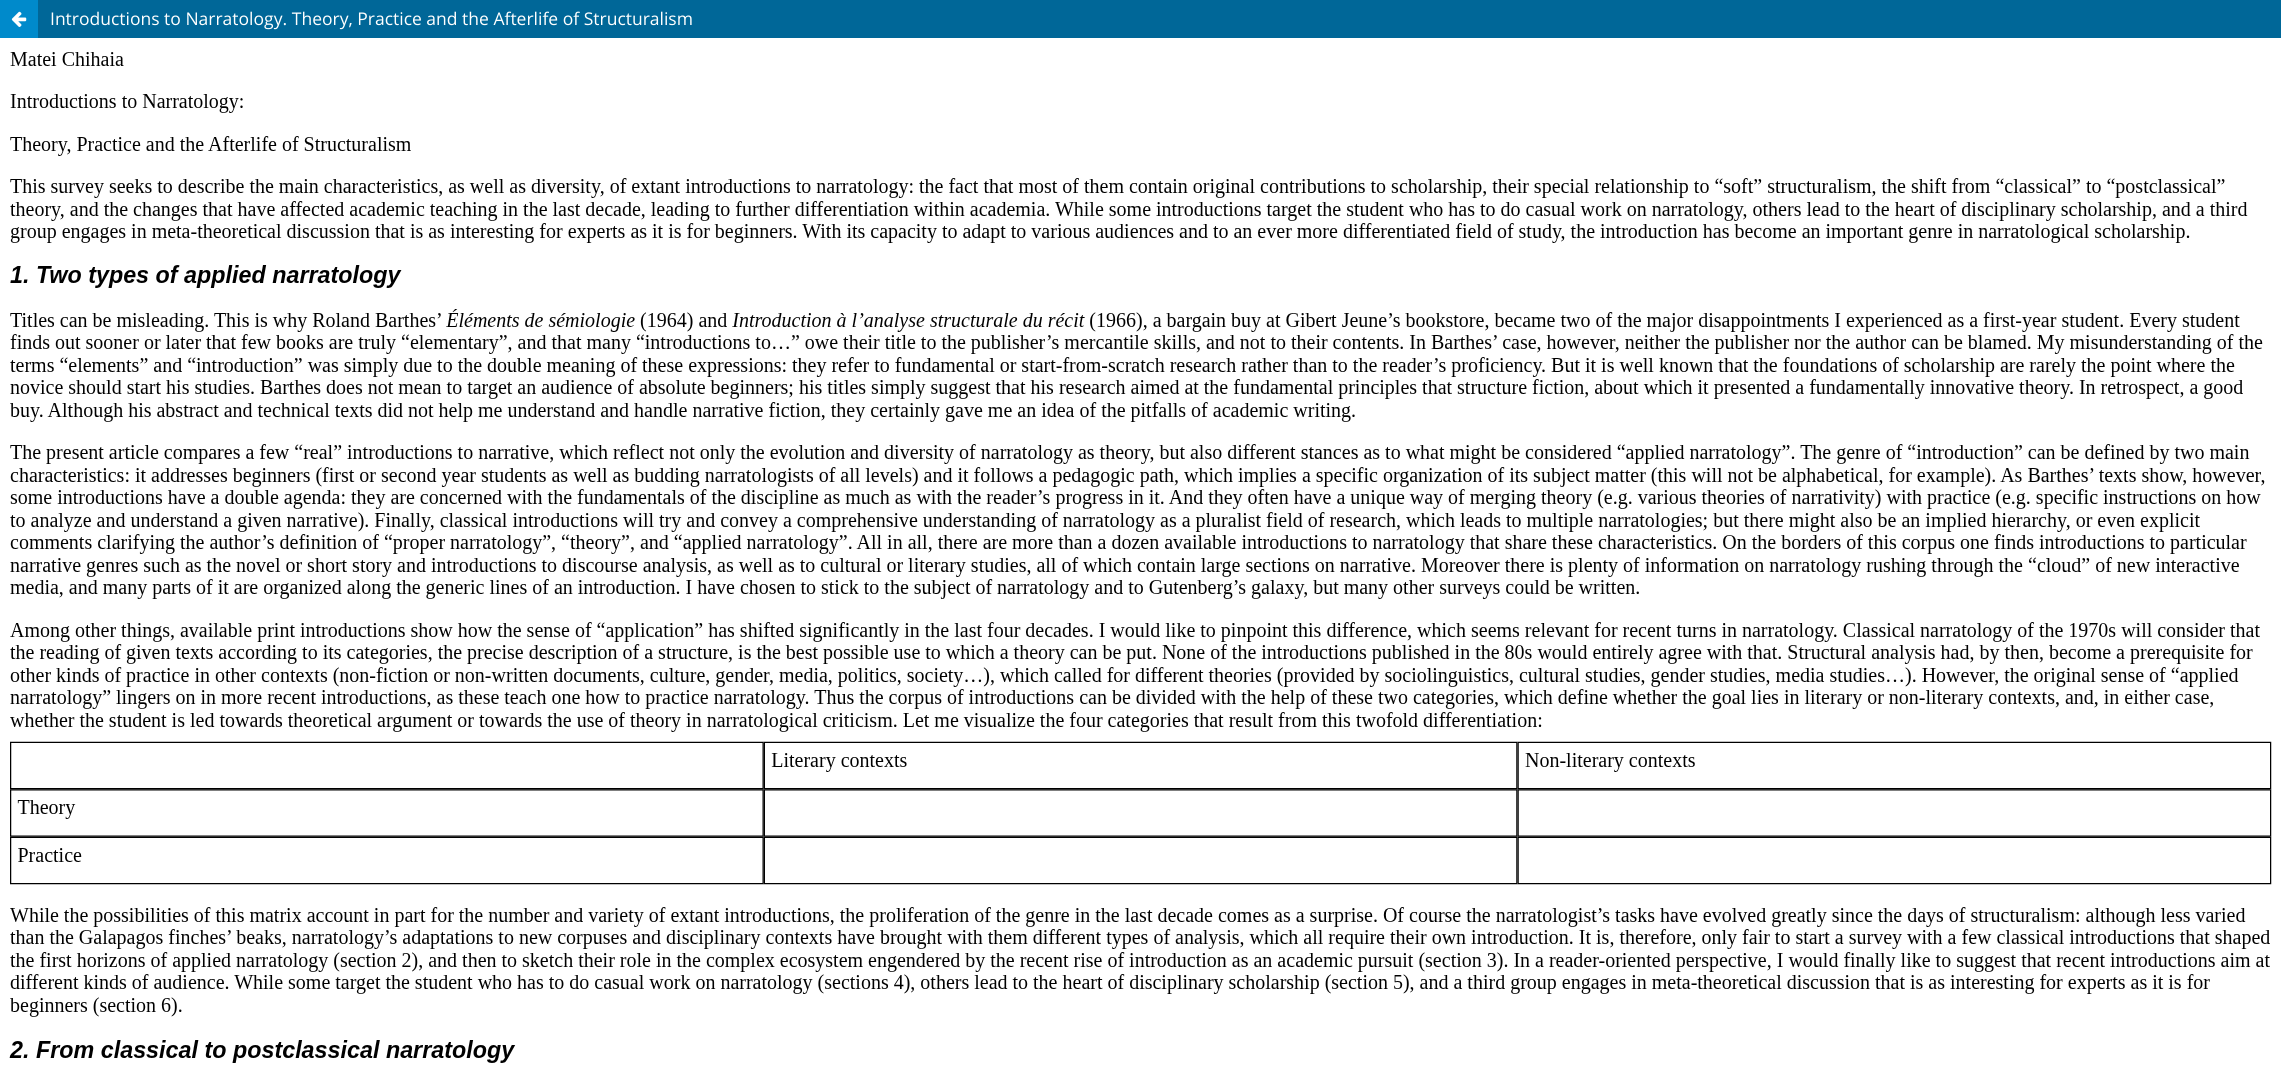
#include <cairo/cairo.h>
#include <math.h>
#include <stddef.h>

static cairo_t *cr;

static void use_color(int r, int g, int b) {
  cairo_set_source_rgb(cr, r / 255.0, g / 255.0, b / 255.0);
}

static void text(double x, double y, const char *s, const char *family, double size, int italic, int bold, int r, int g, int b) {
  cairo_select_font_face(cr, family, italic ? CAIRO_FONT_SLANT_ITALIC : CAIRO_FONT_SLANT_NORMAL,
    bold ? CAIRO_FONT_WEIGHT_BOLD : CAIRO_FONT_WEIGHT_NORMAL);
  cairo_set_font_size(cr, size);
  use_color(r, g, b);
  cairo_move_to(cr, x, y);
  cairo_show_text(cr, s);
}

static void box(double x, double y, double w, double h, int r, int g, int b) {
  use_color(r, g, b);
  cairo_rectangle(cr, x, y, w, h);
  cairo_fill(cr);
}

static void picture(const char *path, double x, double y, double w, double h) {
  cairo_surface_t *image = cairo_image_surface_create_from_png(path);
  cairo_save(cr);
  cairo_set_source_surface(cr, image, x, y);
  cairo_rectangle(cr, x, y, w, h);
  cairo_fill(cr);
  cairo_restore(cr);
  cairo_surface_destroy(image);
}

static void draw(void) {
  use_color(255, 255, 255);
  cairo_paint(cr);
  box(38, 0, 2243, 38, 0, 103, 152);
  box(0, 0, 38, 38, 0, 138, 203);
  picture("img_01.png", 11, 11, 16, 16);
  picture("img_02.png", 9, 52, 2263, 1011);
  text(50, 25, "Introductions to Narratology. Theory, Practice and the Afterlife of Structuralism", "Open Sans", 17.5, 0, 0, 255, 255, 255);
}

int main(void) {
  cairo_surface_t *surface = cairo_image_surface_create(CAIRO_FORMAT_RGB24, 2281, 1083);
  cr = cairo_create(surface);
  cairo_font_options_t *options = cairo_font_options_create();
  cairo_font_options_set_hint_metrics(options, CAIRO_HINT_METRICS_OFF);
  cairo_font_options_set_hint_style(options, CAIRO_HINT_STYLE_NONE);
  cairo_set_font_options(cr, options);
  cairo_set_miter_limit(cr, 4);
  draw();
  cairo_surface_write_to_png(surface, "out.png");
  cairo_font_options_destroy(options);
  cairo_destroy(cr);
  cairo_surface_destroy(surface);
  return 0;
}
